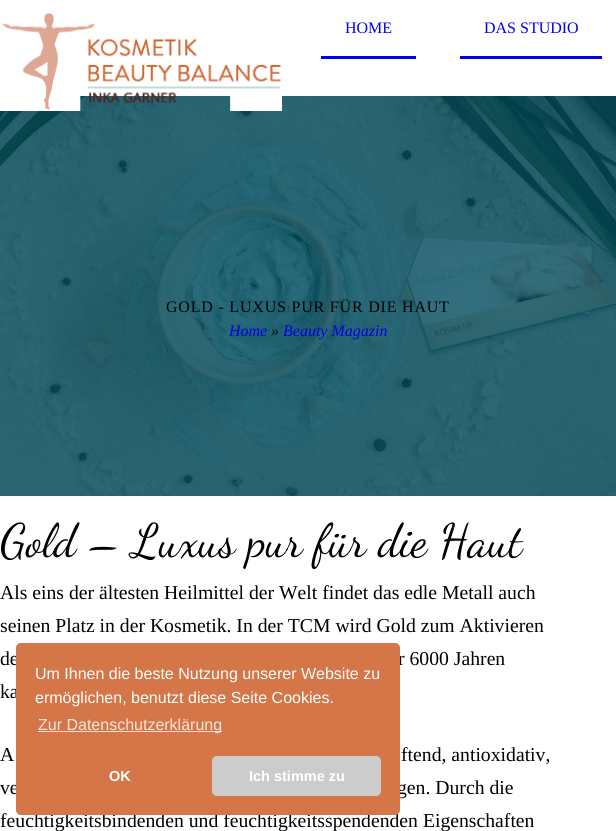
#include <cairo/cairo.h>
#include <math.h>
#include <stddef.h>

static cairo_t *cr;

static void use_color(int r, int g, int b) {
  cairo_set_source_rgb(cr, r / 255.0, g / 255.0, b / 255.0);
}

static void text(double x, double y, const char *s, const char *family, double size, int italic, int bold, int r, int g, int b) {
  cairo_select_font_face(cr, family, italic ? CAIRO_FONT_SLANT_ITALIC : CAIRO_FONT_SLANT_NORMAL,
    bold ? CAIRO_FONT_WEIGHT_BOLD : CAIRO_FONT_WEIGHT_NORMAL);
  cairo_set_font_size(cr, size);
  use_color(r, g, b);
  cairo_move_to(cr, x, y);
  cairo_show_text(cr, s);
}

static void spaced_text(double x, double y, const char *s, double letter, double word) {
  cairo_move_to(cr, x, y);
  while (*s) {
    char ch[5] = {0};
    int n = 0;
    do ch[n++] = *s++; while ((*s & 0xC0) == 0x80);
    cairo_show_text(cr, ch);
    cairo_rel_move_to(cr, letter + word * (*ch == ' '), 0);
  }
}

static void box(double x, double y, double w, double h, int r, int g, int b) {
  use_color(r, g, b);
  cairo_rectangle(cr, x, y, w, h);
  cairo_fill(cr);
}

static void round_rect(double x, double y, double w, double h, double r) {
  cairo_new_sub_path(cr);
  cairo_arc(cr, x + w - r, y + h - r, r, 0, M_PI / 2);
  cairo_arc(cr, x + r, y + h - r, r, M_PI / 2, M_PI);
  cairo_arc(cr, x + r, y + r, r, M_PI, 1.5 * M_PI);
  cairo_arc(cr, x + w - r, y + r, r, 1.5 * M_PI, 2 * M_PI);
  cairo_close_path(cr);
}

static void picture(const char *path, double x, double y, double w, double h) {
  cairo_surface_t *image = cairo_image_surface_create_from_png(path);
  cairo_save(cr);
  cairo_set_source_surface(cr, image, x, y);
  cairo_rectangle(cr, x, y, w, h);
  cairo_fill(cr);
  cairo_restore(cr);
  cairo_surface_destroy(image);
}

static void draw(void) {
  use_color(255, 255, 255);
  cairo_paint(cr);
  picture("img_02.png", 0, 96, 616, 400);
  picture("img_01.png", 0, 13, 282, 98);
  box(321, 56, 95, 3, 0, 0, 238);
  box(460, 56, 142, 3, 0, 0, 238);
  text(345, 33, "HOME", "Liberation Serif", 16, 0, 0, 0, 0, 238);
  text(484, 33, "DAS STUDIO", "Liberation Serif", 16, 0, 0, 0, 0, 238);
  use_color(0, 0, 0);
  spaced_text(166, 312, "GOLD - LUXUS PUR FÜR DIE HAUT", 0.8, 0);
  text(229, 336, "Home", "Liberation Serif", 16, 1, 0, 0, 0, 238);
  text(271, 336, "»", "Liberation Serif", 16, 1, 0, 0, 0, 0);
  text(283, 336, "Beauty Magazin", "Liberation Serif", 16, 1, 0, 0, 0, 238);
  text(0, 556, "Gold – Luxus pur für die Haut", "Dancing Script", 46.75, 0, 0, 0, 0, 0);
  text(0, 599, "Als eins der ältesten Heilmittel der Welt findet das edle Metall auch", "Liberation Serif", 19.7, 0, 0, 0, 0, 0);
  text(0, 632, "seinen Platz in der Kosmetik. In der TCM wird Gold zum Aktivieren", "Liberation Serif", 19.7, 0, 0, 0, 0, 0);
  text(0, 665, "de", "Liberation Serif", 19.7, 0, 0, 0, 0, 0);
  text(398, 665, "r 6000 Jahren", "Liberation Serif", 19.7, 0, 0, 0, 0, 0);
  text(0, 698, "ka", "Liberation Serif", 19.7, 0, 0, 0, 0, 0);
  text(0, 761, "A", "Liberation Serif", 19.7, 0, 0, 0, 0, 0);
  text(401, 761, "ftend, antioxidativ,", "Liberation Serif", 19.7, 0, 0, 0, 0, 0);
  text(0, 794, "ve", "Liberation Serif", 19.7, 0, 0, 0, 0, 0);
  text(397, 794, "gen. Durch die", "Liberation Serif", 19.7, 0, 0, 0, 0, 0);
  text(0, 827, "feuchtigkeitsbindenden und feuchtigkeitsspendenden Eigenschaften", "Liberation Serif", 19.7, 0, 0, 0, 0, 0);
  use_color(212, 118, 72);
  round_rect(16, 643, 384, 172, 5);
  cairo_fill(cr);
  text(35, 679, "Um Ihnen die beste Nutzung unserer Website zu", "Liberation Sans", 16, 0, 0, 255, 255, 255);
  text(35, 703, "ermöglichen, benutzt diese Seite Cookies.", "Liberation Sans", 16, 0, 0, 255, 255, 255);
  box(38, 731, 184, 1, 246, 228, 218);
  text(38, 730, "Zur Datenschutzerklärung", "Liberation Sans", 16, 0, 0, 246, 228, 218);
  text(109, 781, "OK", "Liberation Sans", 14.5, 0, 1, 255, 255, 255);
  use_color(204, 204, 204);
  round_rect(212, 756, 169, 40, 5);
  cairo_fill(cr);
  text(249, 781, "Ich stimme zu", "Liberation Sans", 14.5, 0, 1, 255, 255, 255);
}

int main(void) {
  cairo_surface_t *surface = cairo_image_surface_create(CAIRO_FORMAT_RGB24, 616, 831);
  cr = cairo_create(surface);
  cairo_font_options_t *options = cairo_font_options_create();
  cairo_font_options_set_hint_metrics(options, CAIRO_HINT_METRICS_OFF);
  cairo_font_options_set_hint_style(options, CAIRO_HINT_STYLE_NONE);
  cairo_set_font_options(cr, options);
  cairo_set_miter_limit(cr, 4);
  draw();
  cairo_surface_write_to_png(surface, "out.png");
  cairo_font_options_destroy(options);
  cairo_destroy(cr);
  cairo_surface_destroy(surface);
  return 0;
}
